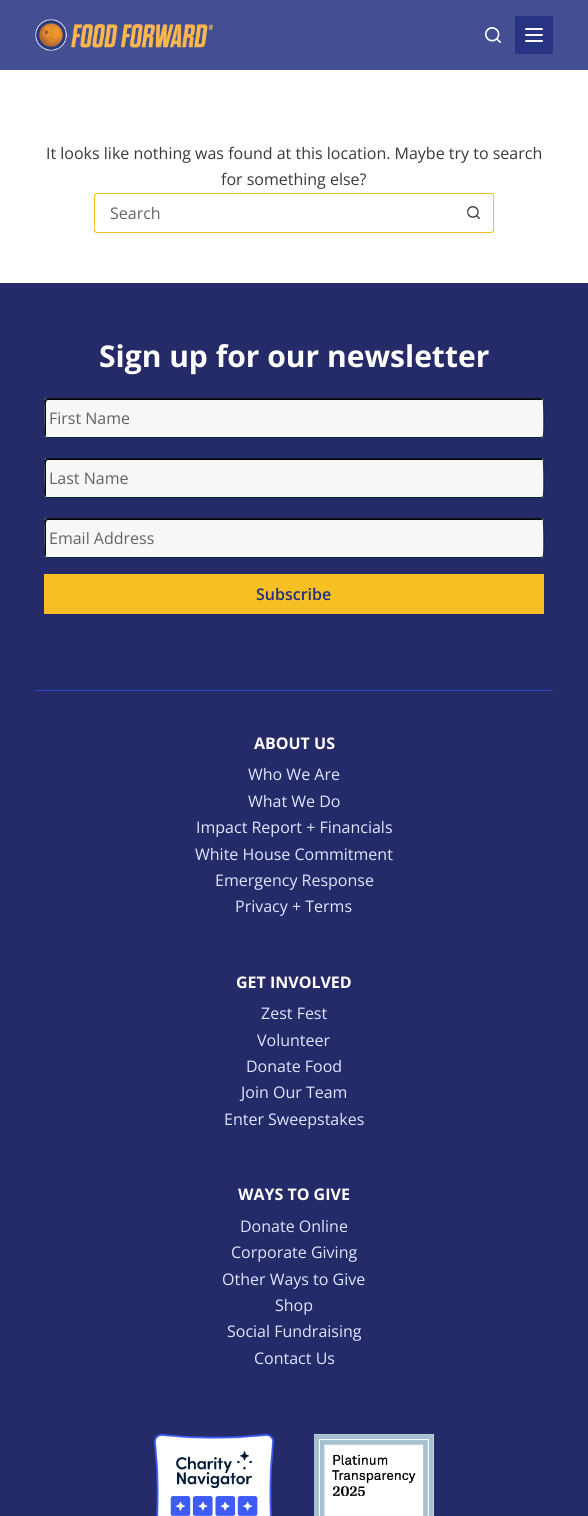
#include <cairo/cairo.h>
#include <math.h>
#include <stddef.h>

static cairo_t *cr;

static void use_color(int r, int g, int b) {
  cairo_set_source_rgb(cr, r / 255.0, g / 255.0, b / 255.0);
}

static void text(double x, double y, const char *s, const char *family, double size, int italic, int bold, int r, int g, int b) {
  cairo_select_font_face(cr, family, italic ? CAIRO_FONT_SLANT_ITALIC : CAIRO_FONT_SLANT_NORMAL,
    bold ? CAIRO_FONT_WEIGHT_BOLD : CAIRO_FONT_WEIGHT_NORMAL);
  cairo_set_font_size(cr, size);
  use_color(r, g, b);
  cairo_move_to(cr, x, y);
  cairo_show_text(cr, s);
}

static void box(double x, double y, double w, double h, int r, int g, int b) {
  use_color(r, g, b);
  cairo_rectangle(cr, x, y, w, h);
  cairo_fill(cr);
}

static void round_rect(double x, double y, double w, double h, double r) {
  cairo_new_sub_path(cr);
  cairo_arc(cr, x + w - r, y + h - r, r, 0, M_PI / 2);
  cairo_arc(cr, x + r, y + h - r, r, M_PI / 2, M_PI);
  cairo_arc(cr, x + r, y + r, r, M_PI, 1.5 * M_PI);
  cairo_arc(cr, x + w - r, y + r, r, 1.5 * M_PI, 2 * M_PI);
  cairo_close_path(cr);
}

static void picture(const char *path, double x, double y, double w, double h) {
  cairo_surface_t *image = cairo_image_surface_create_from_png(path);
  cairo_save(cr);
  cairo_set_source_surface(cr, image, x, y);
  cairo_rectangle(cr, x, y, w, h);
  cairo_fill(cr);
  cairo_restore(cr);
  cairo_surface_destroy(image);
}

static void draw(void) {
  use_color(255, 255, 255);
  cairo_paint(cr);
  box(0, 0, 588, 70, 67, 78, 147);
  picture("img_01.png", 35, 19, 178, 32);
  picture("img_02.png", 485, 27, 16, 16);
  box(515, 16, 38, 38, 39, 52, 131);
  use_color(255, 255, 255);
  round_rect(525, 28, 18, 2, 1);
  cairo_fill(cr);
  round_rect(525, 34, 18, 2, 1);
  cairo_fill(cr);
  round_rect(525, 40, 18, 2, 1);
  cairo_fill(cr);
  use_color(246, 191, 35);
  cairo_set_fill_rule(cr, CAIRO_FILL_RULE_EVEN_ODD);
  cairo_new_path(cr);
  cairo_move_to(cr, 97, 193);
  cairo_line_to(cr, 454, 193);
  cairo_line_to(cr, 454, 233);
  cairo_line_to(cr, 97, 233);
  cairo_curve_to(cr, 95, 233, 94, 232, 94, 230);
  cairo_line_to(cr, 94, 196);
  cairo_curve_to(cr, 94, 194, 95, 193, 97, 193);
  cairo_close_path(cr);
  cairo_move_to(cr, 97, 194);
  cairo_line_to(cr, 454, 194);
  cairo_line_to(cr, 454, 232);
  cairo_line_to(cr, 96, 232);
  cairo_curve_to(cr, 94, 230, 95, 225, 95, 224);
  cairo_line_to(cr, 95, 196);
  cairo_line_to(cr, 96, 194);
  cairo_close_path(cr);
  cairo_fill(cr);
  cairo_new_path(cr);
  cairo_move_to(cr, 454, 193);
  cairo_line_to(cr, 491, 193);
  cairo_curve_to(cr, 493, 193, 494, 194, 494, 196);
  cairo_line_to(cr, 494, 230);
  cairo_curve_to(cr, 494, 232, 493, 233, 491, 233);
  cairo_line_to(cr, 454, 233);
  cairo_close_path(cr);
  cairo_move_to(cr, 454, 194);
  cairo_line_to(cr, 491, 194);
  cairo_curve_to(cr, 492, 194, 493, 195, 493, 196);
  cairo_line_to(cr, 493, 230);
  cairo_curve_to(cr, 493, 231, 492, 232, 491, 232);
  cairo_line_to(cr, 454, 232);
  cairo_close_path(cr);
  cairo_fill(cr);
  picture("img_03.png", 467, 206, 13, 13);
  cairo_new_path(cr);
  cairo_move_to(cr, 472.5, 220.5);
  cairo_curve_to(cr, 468.5, 219.5, 466, 216, 466.5, 211.5);
  use_color(255, 255, 255);
  cairo_set_line_width(cr, 1.5);
  cairo_set_line_cap(cr, CAIRO_LINE_CAP_ROUND);
  cairo_stroke(cr);
  box(0, 283, 588, 1233, 37, 43, 104);
  use_color(247, 247, 247);
  round_rect(44, 398, 500, 40, 3);
  cairo_fill(cr);
  use_color(0, 0, 0);
  cairo_set_fill_rule(cr, CAIRO_FILL_RULE_WINDING);
  cairo_new_path(cr);
  cairo_move_to(cr, 48, 400);
  cairo_line_to(cr, 543, 400);
  cairo_curve_to(cr, 543, 400, 542, 399, 541, 399);
  cairo_line_to(cr, 47, 399);
  cairo_curve_to(cr, 46, 399, 45, 400, 45, 401);
  cairo_line_to(cr, 45, 435);
  cairo_curve_to(cr, 45, 436, 46, 437, 46, 437);
  cairo_line_to(cr, 46, 408);
  cairo_curve_to(cr, 46, 407, 45, 400, 48, 400);
  cairo_close_path(cr);
  cairo_fill(cr);
  cairo_new_path(cr);
  cairo_move_to(cr, 543, 399);
  cairo_curve_to(cr, 544, 400.5, 544, 432.5, 543.5, 435.5);
  cairo_line_to(cr, 543, 436.5);
  cairo_line_to(cr, 541, 437.5);
  cairo_line_to(cr, 47, 437.5);
  cairo_line_to(cr, 45, 437);
  use_color(0, 40, 49);
  cairo_set_line_width(cr, 1);
  cairo_set_line_cap(cr, CAIRO_LINE_CAP_BUTT);
  cairo_stroke(cr);
  cairo_new_path(cr);
  cairo_move_to(cr, 45, 437);
  cairo_curve_to(cr, 44, 435.5, 44, 403.5, 44.5, 400.5);
  cairo_line_to(cr, 45, 399.5);
  cairo_line_to(cr, 47, 398.5);
  cairo_line_to(cr, 541, 398.5);
  cairo_line_to(cr, 543, 399);
  use_color(0, 27, 33);
  cairo_stroke(cr);
  use_color(247, 247, 247);
  round_rect(44, 458, 500, 40, 3);
  cairo_fill(cr);
  use_color(0, 0, 0);
  cairo_new_path(cr);
  cairo_move_to(cr, 48, 460);
  cairo_line_to(cr, 543, 460);
  cairo_curve_to(cr, 543, 460, 542, 459, 541, 459);
  cairo_line_to(cr, 47, 459);
  cairo_curve_to(cr, 46, 459, 45, 460, 45, 461);
  cairo_line_to(cr, 45, 495);
  cairo_curve_to(cr, 45, 496, 46, 497, 46, 497);
  cairo_line_to(cr, 46, 468);
  cairo_curve_to(cr, 46, 467, 45, 460, 48, 460);
  cairo_close_path(cr);
  cairo_fill(cr);
  cairo_new_path(cr);
  cairo_move_to(cr, 543, 459);
  cairo_curve_to(cr, 544, 460.5, 544, 492.5, 543.5, 495.5);
  cairo_line_to(cr, 543, 496.5);
  cairo_line_to(cr, 541, 497.5);
  cairo_line_to(cr, 47, 497.5);
  cairo_line_to(cr, 45, 497);
  use_color(0, 40, 49);
  cairo_stroke(cr);
  cairo_new_path(cr);
  cairo_move_to(cr, 45, 497);
  cairo_curve_to(cr, 44, 495.5, 44, 463.5, 44.5, 460.5);
  cairo_line_to(cr, 45, 459.5);
  cairo_line_to(cr, 47, 458.5);
  cairo_line_to(cr, 541, 458.5);
  cairo_line_to(cr, 543, 459);
  use_color(0, 27, 33);
  cairo_stroke(cr);
  use_color(247, 247, 247);
  round_rect(44, 518, 500, 40, 3);
  cairo_fill(cr);
  use_color(0, 0, 0);
  cairo_new_path(cr);
  cairo_move_to(cr, 48, 520);
  cairo_line_to(cr, 543, 520);
  cairo_curve_to(cr, 543, 520, 542, 519, 541, 519);
  cairo_line_to(cr, 47, 519);
  cairo_curve_to(cr, 46, 519, 45, 520, 45, 521);
  cairo_line_to(cr, 45, 555);
  cairo_curve_to(cr, 45, 556, 46, 557, 46, 557);
  cairo_line_to(cr, 46, 528);
  cairo_curve_to(cr, 46, 527, 45, 520, 48, 520);
  cairo_close_path(cr);
  cairo_fill(cr);
  cairo_new_path(cr);
  cairo_move_to(cr, 543, 519);
  cairo_curve_to(cr, 544, 520.5, 544, 552.5, 543.5, 555.5);
  cairo_line_to(cr, 543, 556.5);
  cairo_line_to(cr, 541, 557.5);
  cairo_line_to(cr, 47, 557.5);
  cairo_line_to(cr, 45, 557);
  use_color(0, 40, 49);
  cairo_stroke(cr);
  cairo_new_path(cr);
  cairo_move_to(cr, 45, 557);
  cairo_curve_to(cr, 44, 555.5, 44, 523.5, 44.5, 520.5);
  cairo_line_to(cr, 45, 519.5);
  cairo_line_to(cr, 47, 518.5);
  cairo_line_to(cr, 541, 518.5);
  cairo_line_to(cr, 543, 519);
  use_color(0, 27, 33);
  cairo_stroke(cr);
  box(44, 574, 500, 40, 246, 191, 35);
  box(35, 690, 518, 1, 41, 70, 197);
  picture("img_04.png", 154, 1434, 120, 82);
  picture("img_05.png", 314, 1434, 120, 82);
  text(46, 159, "It looks like nothing was found at this location. Maybe try to search", "Open Sans", 16, 0, 0, 57, 57, 57);
  text(221, 185, "for something else?", "Open Sans", 16, 0, 0, 57, 57, 57);
  text(110, 219, "Search", "Open Sans", 16, 0, 0, 99, 99, 99);
  text(99, 367, "Sign up for our newsletter", "Open Sans", 30, 0, 1, 255, 255, 255);
  text(49, 424, "First Name", "Open Sans", 16, 0, 0, 99, 99, 99);
  text(49, 484, "Last Name", "Open Sans", 16, 0, 0, 99, 99, 99);
  text(49, 544, "Email Address", "Open Sans", 16, 0, 0, 99, 99, 99);
  text(256, 600, "Subscribe", "Open Sans SemiBold", 16, 0, 0, 34, 46, 127);
  text(254, 749, "ABOUT US", "Open Sans", 16, 0, 1, 255, 255, 255);
  text(248, 780, "Who We Are", "Open Sans", 16, 0, 0, 223, 229, 255);
  text(248, 807, "What We Do", "Open Sans", 16, 0, 0, 223, 229, 255);
  text(196, 833, "Impact Report + Financials", "Open Sans", 16, 0, 0, 223, 229, 255);
  text(195, 860, "White House Commitment", "Open Sans", 16, 0, 0, 223, 229, 255);
  text(215, 886, "Emergency Response", "Open Sans", 16, 0, 0, 223, 229, 255);
  text(235, 912, "Privacy + Terms", "Open Sans", 16, 0, 0, 223, 229, 255);
  text(236, 988, "GET INVOLVED", "Open Sans", 16, 0, 1, 255, 255, 255);
  text(261, 1019, "Zest Fest", "Open Sans", 16, 0, 0, 223, 229, 255);
  text(257, 1046, "Volunteer", "Open Sans", 16, 0, 0, 223, 229, 255);
  text(246, 1072, "Donate Food", "Open Sans", 16, 0, 0, 223, 229, 255);
  text(241, 1098, "Join Our Team", "Open Sans", 16, 0, 0, 223, 229, 255);
  text(224, 1125, "Enter Sweepstakes", "Open Sans", 16, 0, 0, 223, 229, 255);
  text(238, 1200, "WAYS TO GIVE", "Open Sans", 16, 0, 1, 255, 255, 255);
  text(240, 1232, "Donate Online", "Open Sans", 16, 0, 0, 223, 229, 255);
  text(231, 1258, "Corporate Giving", "Open Sans", 16, 0, 0, 223, 229, 255);
  text(222, 1285, "Other Ways to Give", "Open Sans", 16, 0, 0, 223, 229, 255);
  text(275, 1311, "Shop", "Open Sans", 16, 0, 0, 223, 229, 255);
  text(227, 1337, "Social Fundraising", "Open Sans", 16, 0, 0, 223, 229, 255);
  text(254, 1364, "Contact Us", "Open Sans", 16, 0, 0, 223, 229, 255);
}

int main(void) {
  cairo_surface_t *surface = cairo_image_surface_create(CAIRO_FORMAT_RGB24, 588, 1516);
  cr = cairo_create(surface);
  cairo_font_options_t *options = cairo_font_options_create();
  cairo_font_options_set_hint_metrics(options, CAIRO_HINT_METRICS_OFF);
  cairo_font_options_set_hint_style(options, CAIRO_HINT_STYLE_NONE);
  cairo_set_font_options(cr, options);
  cairo_set_miter_limit(cr, 4);
  draw();
  cairo_surface_write_to_png(surface, "out.png");
  cairo_font_options_destroy(options);
  cairo_destroy(cr);
  cairo_surface_destroy(surface);
  return 0;
}
